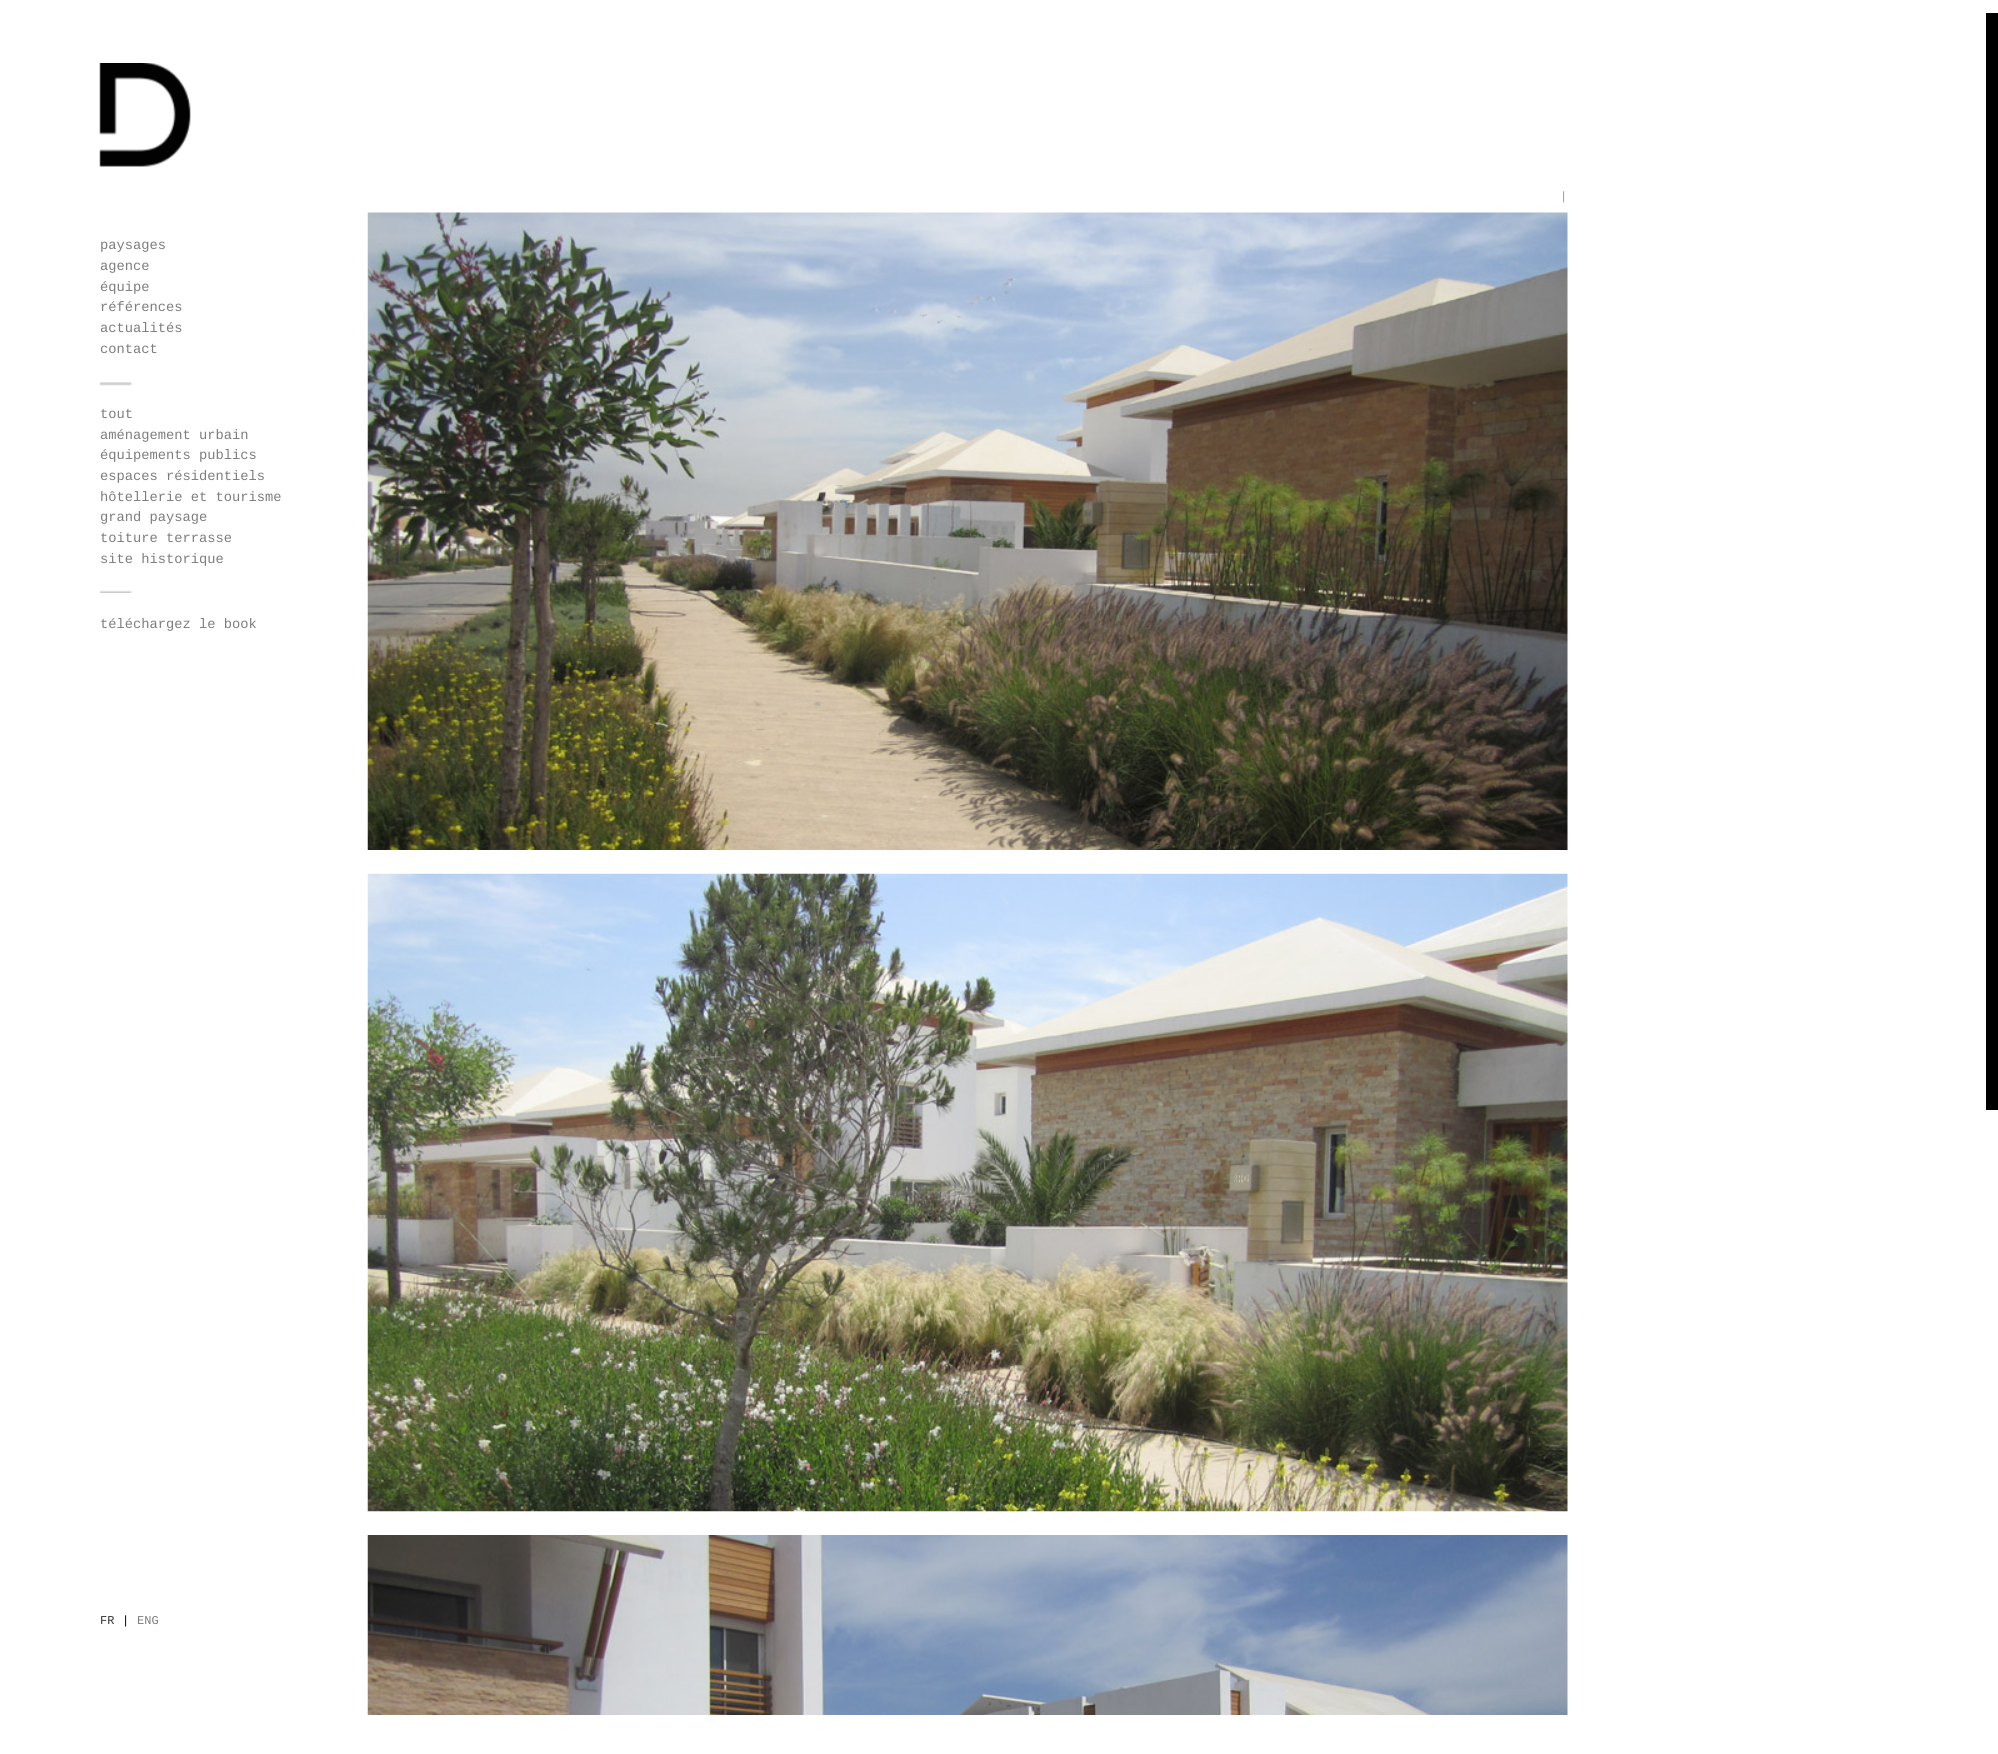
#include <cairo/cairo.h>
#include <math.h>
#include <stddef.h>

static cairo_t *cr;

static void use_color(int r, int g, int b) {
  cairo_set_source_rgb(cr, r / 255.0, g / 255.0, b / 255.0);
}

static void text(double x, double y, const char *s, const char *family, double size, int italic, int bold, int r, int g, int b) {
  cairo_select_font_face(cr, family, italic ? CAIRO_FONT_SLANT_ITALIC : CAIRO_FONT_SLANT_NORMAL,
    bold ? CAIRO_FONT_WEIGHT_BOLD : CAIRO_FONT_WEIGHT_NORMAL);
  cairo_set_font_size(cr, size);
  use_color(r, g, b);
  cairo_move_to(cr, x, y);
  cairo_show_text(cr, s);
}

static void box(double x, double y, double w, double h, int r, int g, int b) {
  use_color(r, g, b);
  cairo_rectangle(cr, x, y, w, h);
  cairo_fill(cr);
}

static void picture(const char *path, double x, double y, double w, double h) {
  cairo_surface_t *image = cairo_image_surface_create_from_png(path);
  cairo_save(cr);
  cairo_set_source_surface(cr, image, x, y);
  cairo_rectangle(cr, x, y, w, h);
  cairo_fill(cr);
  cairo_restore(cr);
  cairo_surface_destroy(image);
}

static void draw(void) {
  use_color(255, 255, 255);
  cairo_paint(cr);
  picture("img_01.png", 367, 212, 1201, 638);
  picture("img_02.png", 367, 873, 1201, 639);
  picture("img_03.png", 367, 1535, 1201, 180);
  box(1986, 13, 12, 1097, 0, 0, 0);
  picture("img_04.png", 99, 63, 92, 104);
  picture("img_05.png", 99, 590, 33, 3);
  picture("img_06.png", 99, 382, 33, 4);
  text(1560, 200, "|", "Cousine", 12, 0, 0, 153, 153, 153);
  text(100, 249, "paysages", "Cousine", 13.75, 0, 0, 125, 125, 125);
  text(100, 270, "agence", "Cousine", 13.75, 0, 0, 125, 125, 125);
  text(100, 291, "équipe", "Cousine", 13.75, 0, 0, 125, 125, 125);
  text(100, 311, "références", "Cousine", 13.75, 0, 0, 125, 125, 125);
  text(100, 332, "actualités", "Cousine", 13.75, 0, 0, 125, 125, 125);
  text(100, 353, "contact", "Cousine", 13.75, 0, 0, 125, 125, 125);
  text(100, 418, "tout", "Cousine", 13.75, 0, 0, 125, 125, 125);
  text(100, 439, "aménagement urbain", "Cousine", 13.75, 0, 0, 125, 125, 125);
  text(100, 459, "équipements publics", "Cousine", 13.75, 0, 0, 125, 125, 125);
  text(100, 480, "espaces résidentiels", "Cousine", 13.75, 0, 0, 125, 125, 125);
  text(100, 501, "hôtellerie et tourisme", "Cousine", 13.75, 0, 0, 125, 125, 125);
  text(100, 521, "grand paysage", "Cousine", 13.75, 0, 0, 125, 125, 125);
  text(100, 542, "toiture terrasse", "Cousine", 13.75, 0, 0, 125, 125, 125);
  text(100, 563, "site historique", "Cousine", 13.75, 0, 0, 125, 125, 125);
  text(100, 628, "téléchargez le book", "Cousine", 13.75, 0, 0, 125, 125, 125);
  text(100, 1624, "FR", "Cousine", 12, 0, 0, 51, 51, 51);
  text(122, 1624, "|", "Cousine", 12, 0, 0, 0, 0, 0);
  text(137, 1624, "ENG", "Cousine", 12, 0, 0, 125, 125, 125);
}

int main(void) {
  cairo_surface_t *surface = cairo_image_surface_create(CAIRO_FORMAT_RGB24, 1998, 1754);
  cr = cairo_create(surface);
  cairo_font_options_t *options = cairo_font_options_create();
  cairo_font_options_set_hint_metrics(options, CAIRO_HINT_METRICS_OFF);
  cairo_font_options_set_hint_style(options, CAIRO_HINT_STYLE_NONE);
  cairo_set_font_options(cr, options);
  cairo_set_miter_limit(cr, 4);
  draw();
  cairo_surface_write_to_png(surface, "out.png");
  cairo_font_options_destroy(options);
  cairo_destroy(cr);
  cairo_surface_destroy(surface);
  return 0;
}
